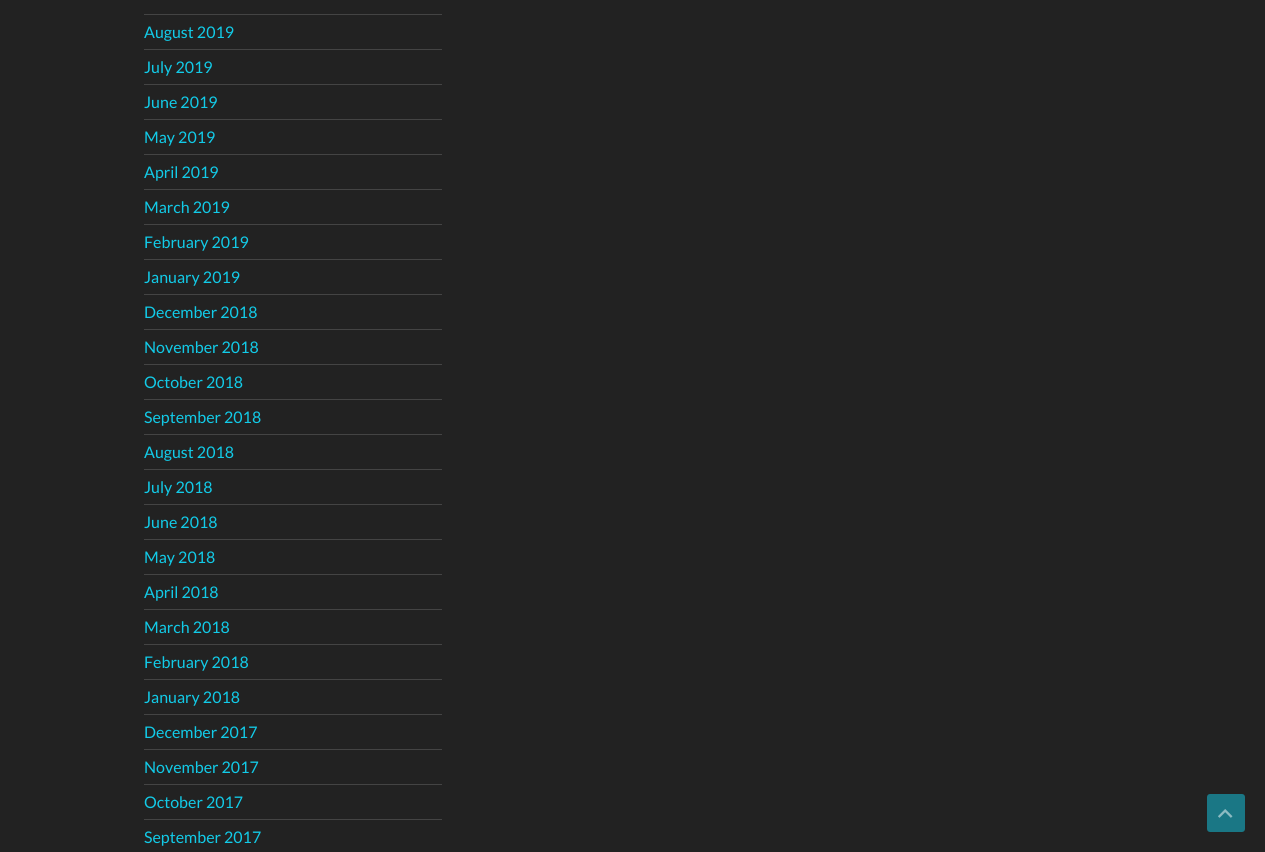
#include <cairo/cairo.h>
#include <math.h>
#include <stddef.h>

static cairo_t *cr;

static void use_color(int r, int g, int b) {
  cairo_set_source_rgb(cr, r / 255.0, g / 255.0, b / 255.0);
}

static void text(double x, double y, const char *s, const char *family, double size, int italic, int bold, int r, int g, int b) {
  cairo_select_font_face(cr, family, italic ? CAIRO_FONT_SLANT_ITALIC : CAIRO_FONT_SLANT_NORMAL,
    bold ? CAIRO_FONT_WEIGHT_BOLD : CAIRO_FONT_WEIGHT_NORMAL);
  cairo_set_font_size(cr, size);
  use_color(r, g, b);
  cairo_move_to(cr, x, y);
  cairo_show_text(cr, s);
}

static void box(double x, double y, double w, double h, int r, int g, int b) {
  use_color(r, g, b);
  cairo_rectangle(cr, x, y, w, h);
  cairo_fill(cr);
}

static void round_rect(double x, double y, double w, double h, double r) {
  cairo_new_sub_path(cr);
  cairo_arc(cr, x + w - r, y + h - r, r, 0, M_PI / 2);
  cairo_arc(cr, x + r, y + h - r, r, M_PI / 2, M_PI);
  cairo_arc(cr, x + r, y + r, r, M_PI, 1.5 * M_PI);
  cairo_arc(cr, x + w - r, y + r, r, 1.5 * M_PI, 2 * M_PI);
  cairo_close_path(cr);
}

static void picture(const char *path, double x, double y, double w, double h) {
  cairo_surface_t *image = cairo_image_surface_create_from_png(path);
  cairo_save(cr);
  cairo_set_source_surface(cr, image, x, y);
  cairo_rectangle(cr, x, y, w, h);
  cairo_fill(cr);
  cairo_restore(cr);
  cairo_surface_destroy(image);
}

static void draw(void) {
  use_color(34, 34, 34);
  cairo_paint(cr);
  box(144, 14, 298, 1, 68, 68, 68);
  box(144, 49, 298, 1, 68, 68, 68);
  box(144, 84, 298, 1, 68, 68, 68);
  box(144, 119, 298, 1, 68, 68, 68);
  box(144, 154, 298, 1, 68, 68, 68);
  box(144, 189, 298, 1, 68, 68, 68);
  box(144, 224, 298, 1, 68, 68, 68);
  box(144, 259, 298, 1, 68, 68, 68);
  box(144, 294, 298, 1, 68, 68, 68);
  box(144, 329, 298, 1, 68, 68, 68);
  box(144, 364, 298, 1, 68, 68, 68);
  box(144, 399, 298, 1, 68, 68, 68);
  box(144, 434, 298, 1, 68, 68, 68);
  box(144, 469, 298, 1, 68, 68, 68);
  box(144, 504, 298, 1, 68, 68, 68);
  box(144, 539, 298, 1, 68, 68, 68);
  box(144, 574, 298, 1, 68, 68, 68);
  box(144, 609, 298, 1, 68, 68, 68);
  box(144, 644, 298, 1, 68, 68, 68);
  box(144, 679, 298, 1, 68, 68, 68);
  box(144, 714, 298, 1, 68, 68, 68);
  box(144, 749, 298, 1, 68, 68, 68);
  box(144, 784, 298, 1, 68, 68, 68);
  box(144, 819, 298, 1, 68, 68, 68);
  use_color(26, 119, 133);
  round_rect(1207, 794, 38, 38, 3);
  cairo_fill(cr);
  picture("img_01.png", 1218, 809, 15, 9);
  text(144, 38, "August 2019", "Lato", 16, 0, 0, 18, 203, 232);
  text(144, 73, "July 2019", "Lato", 16, 0, 0, 18, 203, 232);
  text(144, 108, "June 2019", "Lato", 16, 0, 0, 18, 203, 232);
  text(144, 143, "May 2019", "Lato", 16, 0, 0, 18, 203, 232);
  text(144, 178, "April 2019", "Lato", 16, 0, 0, 18, 203, 232);
  text(144, 213, "March 2019", "Lato", 16, 0, 0, 18, 203, 232);
  text(144, 248, "February 2019", "Lato", 16, 0, 0, 18, 203, 232);
  text(144, 283, "January 2019", "Lato", 16, 0, 0, 18, 203, 232);
  text(144, 318, "December 2018", "Lato", 16, 0, 0, 18, 203, 232);
  text(144, 353, "November 2018", "Lato", 16, 0, 0, 18, 203, 232);
  text(144, 388, "October 2018", "Lato", 16, 0, 0, 18, 203, 232);
  text(144, 423, "September 2018", "Lato", 16, 0, 0, 18, 203, 232);
  text(144, 458, "August 2018", "Lato", 16, 0, 0, 18, 203, 232);
  text(144, 493, "July 2018", "Lato", 16, 0, 0, 18, 203, 232);
  text(144, 528, "June 2018", "Lato", 16, 0, 0, 18, 203, 232);
  text(144, 563, "May 2018", "Lato", 16, 0, 0, 18, 203, 232);
  text(144, 598, "April 2018", "Lato", 16, 0, 0, 18, 203, 232);
  text(144, 633, "March 2018", "Lato", 16, 0, 0, 18, 203, 232);
  text(144, 668, "February 2018", "Lato", 16, 0, 0, 18, 203, 232);
  text(144, 703, "January 2018", "Lato", 16, 0, 0, 18, 203, 232);
  text(144, 738, "December 2017", "Lato", 16, 0, 0, 18, 203, 232);
  text(144, 773, "November 2017", "Lato", 16, 0, 0, 18, 203, 232);
  text(144, 808, "October 2017", "Lato", 16, 0, 0, 18, 203, 232);
  text(144, 843, "September 2017", "Lato", 16, 0, 0, 18, 203, 232);
}

int main(void) {
  cairo_surface_t *surface = cairo_image_surface_create(CAIRO_FORMAT_RGB24, 1265, 852);
  cr = cairo_create(surface);
  cairo_font_options_t *options = cairo_font_options_create();
  cairo_font_options_set_hint_metrics(options, CAIRO_HINT_METRICS_OFF);
  cairo_font_options_set_hint_style(options, CAIRO_HINT_STYLE_NONE);
  cairo_set_font_options(cr, options);
  cairo_set_miter_limit(cr, 4);
  draw();
  cairo_surface_write_to_png(surface, "out.png");
  cairo_font_options_destroy(options);
  cairo_destroy(cr);
  cairo_surface_destroy(surface);
  return 0;
}
